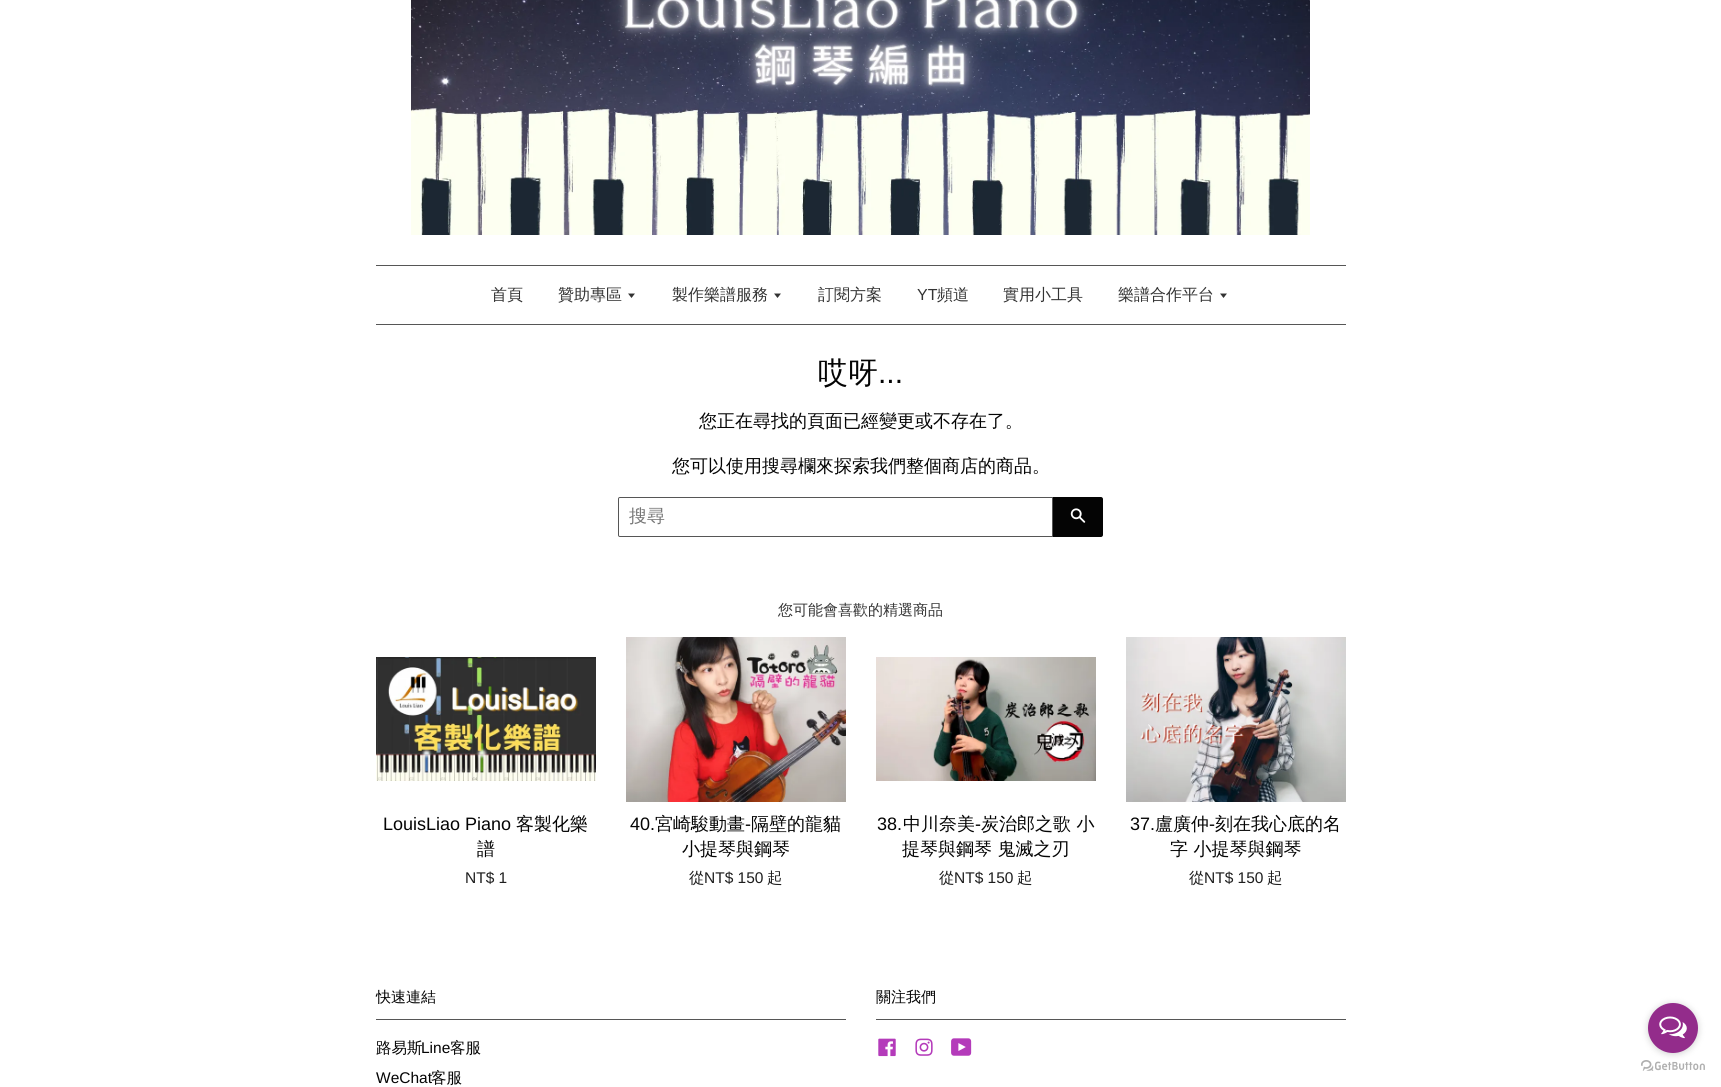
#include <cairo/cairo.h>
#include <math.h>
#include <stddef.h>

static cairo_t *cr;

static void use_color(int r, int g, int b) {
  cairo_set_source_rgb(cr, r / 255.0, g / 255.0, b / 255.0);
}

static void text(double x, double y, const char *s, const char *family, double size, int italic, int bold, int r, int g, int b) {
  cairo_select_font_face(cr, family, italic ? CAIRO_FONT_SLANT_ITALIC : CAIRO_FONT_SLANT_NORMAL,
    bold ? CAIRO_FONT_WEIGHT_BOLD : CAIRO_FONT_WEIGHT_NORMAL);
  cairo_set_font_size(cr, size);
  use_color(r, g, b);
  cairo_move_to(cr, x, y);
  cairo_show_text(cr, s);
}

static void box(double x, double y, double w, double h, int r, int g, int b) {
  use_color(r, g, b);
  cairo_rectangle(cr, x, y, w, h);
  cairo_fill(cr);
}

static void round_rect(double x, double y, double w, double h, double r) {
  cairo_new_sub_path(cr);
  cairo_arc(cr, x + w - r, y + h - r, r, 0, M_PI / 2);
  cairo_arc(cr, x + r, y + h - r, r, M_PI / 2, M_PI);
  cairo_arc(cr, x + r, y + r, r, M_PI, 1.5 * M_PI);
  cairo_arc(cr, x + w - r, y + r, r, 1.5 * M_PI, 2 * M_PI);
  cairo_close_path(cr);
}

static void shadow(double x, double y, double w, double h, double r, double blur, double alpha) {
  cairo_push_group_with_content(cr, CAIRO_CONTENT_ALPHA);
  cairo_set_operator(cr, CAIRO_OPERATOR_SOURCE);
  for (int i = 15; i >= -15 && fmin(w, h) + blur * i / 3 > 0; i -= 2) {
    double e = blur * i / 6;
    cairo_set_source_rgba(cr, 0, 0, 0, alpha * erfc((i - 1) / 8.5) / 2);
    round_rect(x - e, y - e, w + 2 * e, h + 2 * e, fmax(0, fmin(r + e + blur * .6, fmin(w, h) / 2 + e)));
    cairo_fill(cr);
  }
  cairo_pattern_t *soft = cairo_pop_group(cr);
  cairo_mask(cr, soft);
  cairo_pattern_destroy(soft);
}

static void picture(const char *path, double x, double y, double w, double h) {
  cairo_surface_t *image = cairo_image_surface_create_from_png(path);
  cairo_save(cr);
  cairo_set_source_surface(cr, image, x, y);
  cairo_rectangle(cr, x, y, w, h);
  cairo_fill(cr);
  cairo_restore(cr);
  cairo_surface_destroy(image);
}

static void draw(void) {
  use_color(255, 255, 255);
  cairo_paint(cr);
  picture("img_01.png", 411, 0, 899, 235);
  box(376, 265, 970, 1, 86, 86, 86);
  box(376, 324, 970, 1, 86, 86, 86);
  use_color(51, 51, 51);
  cairo_new_path(cr);
  cairo_move_to(cr, 628, 293.5);
  cairo_line_to(cr, 631.5, 298);
  cairo_line_to(cr, 635, 293.5);
  cairo_close_path(cr);
  cairo_fill(cr);
  cairo_new_path(cr);
  cairo_move_to(cr, 774, 293.5);
  cairo_line_to(cr, 777.5, 298);
  cairo_line_to(cr, 781, 293.5);
  cairo_close_path(cr);
  cairo_fill(cr);
  cairo_new_path(cr);
  cairo_move_to(cr, 1220, 293.5);
  cairo_line_to(cr, 1223.5, 298);
  cairo_line_to(cr, 1227, 293.5);
  cairo_close_path(cr);
  cairo_fill(cr);
  cairo_new_path(cr);
  cairo_move_to(cr, 620, 497.5);
  cairo_line_to(cr, 1052.5, 497.5);
  cairo_line_to(cr, 1052.5, 536.5);
  cairo_line_to(cr, 620, 536.5);
  cairo_curve_to(cr, 619, 536.5, 618.5, 536, 618.5, 535);
  cairo_line_to(cr, 618.5, 499);
  cairo_curve_to(cr, 618.5, 498, 619, 497.5, 620, 497.5);
  cairo_close_path(cr);
  use_color(86, 86, 86);
  cairo_set_line_width(cr, 1);
  cairo_stroke(cr);
  use_color(4, 4, 4);
  cairo_new_path(cr);
  cairo_move_to(cr, 1053, 497);
  cairo_line_to(cr, 1101, 497);
  cairo_curve_to(cr, 1102, 497, 1103, 498, 1103, 499);
  cairo_line_to(cr, 1103, 535);
  cairo_curve_to(cr, 1103, 536, 1102, 537, 1101, 537);
  cairo_line_to(cr, 1053, 537);
  cairo_close_path(cr);
  cairo_fill(cr);
  picture("img_02.png", 1070, 508, 16, 15);
  picture("img_03.png", 376, 657, 220, 124);
  picture("img_04.png", 626, 637, 220, 165);
  picture("img_05.png", 876, 657, 220, 124);
  picture("img_06.png", 1126, 637, 220, 165);
  box(376, 1019, 470, 1, 86, 86, 86);
  box(876, 1019, 470, 1, 86, 86, 86);
  picture("img_07.png", 878, 1038, 18, 19);
  picture("img_08.png", 915, 1038, 18, 18);
  picture("img_09.png", 951, 1038, 21, 18);
  picture("img_11.png", 1641, 1060, 64, 11);
  use_color(136, 136, 136);
  shadow(1648, 1004, 50, 50, 25, 3.5, 0.4);
  use_color(147, 44, 139);
  cairo_arc(cr, 1673, 1028, 25, 0, 2 * M_PI);
  cairo_fill(cr);
  picture("img_10.png", 1659, 1016, 28, 23);
  text(491, 300, "首頁", "WenQuanYi Zen Hei Medium", 16, 0, 0, 51, 51, 51);
  text(558, 300, "贊助專區", "WenQuanYi Zen Hei Medium", 16, 0, 0, 51, 51, 51);
  text(672, 300, "製作樂譜服務", "WenQuanYi Zen Hei Medium", 16, 0, 0, 51, 51, 51);
  text(818, 300, "訂閱方案", "WenQuanYi Zen Hei Medium", 16, 0, 0, 51, 51, 51);
  text(917, 300, "YT", "Liberation Sans", 16, 0, 0, 51, 51, 51);
  text(937, 300, "頻道", "WenQuanYi Zen Hei Medium", 16, 0, 0, 51, 51, 51);
  text(1003, 300, "實用小工具", "WenQuanYi Zen Hei Medium", 16, 0, 0, 51, 51, 51);
  text(1118, 300, "樂譜合作平台", "WenQuanYi Zen Hei Medium", 16, 0, 0, 51, 51, 51);
  text(818, 383, "哎呀", "WenQuanYi Zen Hei Medium", 30, 0, 0, 4, 4, 4);
  text(878, 383, "...", "Liberation Sans", 30, 0, 0, 4, 4, 4);
  text(699, 427, "您正在尋找的頁面已經變更或不存在了。", "WenQuanYi Zen Hei Medium", 18, 0, 0, 4, 4, 4);
  text(672, 472, "您可以使用搜尋欄來探索我們整個商店的商品。", "WenQuanYi Zen Hei Medium", 18, 0, 0, 4, 4, 4);
  text(629, 522, "搜尋", "WenQuanYi Zen Hei Medium", 18, 0, 0, 117, 117, 117);
  text(778, 615, "您可能會喜歡的精選商品", "WenQuanYi Zen Hei Medium", 15, 0, 0, 51, 51, 51);
  text(383, 830, "LouisLiao Piano", "Liberation Sans", 18, 0, 0, 4, 4, 4);
  text(516, 830, "客製化樂", "WenQuanYi Zen Hei Medium", 18, 0, 0, 4, 4, 4);
  text(477, 855, "譜", "WenQuanYi Zen Hei Medium", 18, 0, 0, 4, 4, 4);
  text(465, 883, "NT$ 1", "Liberation Sans", 15.5, 0, 0, 30, 30, 30);
  text(630, 830, "40.", "Liberation Sans", 18, 0, 0, 4, 4, 4);
  text(655, 830, "宮崎駿動畫", "WenQuanYi Zen Hei Medium", 18, 0, 0, 4, 4, 4);
  text(745, 830, "-", "Liberation Sans", 18, 0, 0, 4, 4, 4);
  text(751, 830, "隔壁的龍貓", "WenQuanYi Zen Hei Medium", 18, 0, 0, 4, 4, 4);
  text(682, 855, "小提琴與鋼琴", "WenQuanYi Zen Hei Medium", 18, 0, 0, 4, 4, 4);
  text(689, 883, "從", "WenQuanYi Zen Hei Medium", 15.5, 0, 0, 30, 30, 30);
  text(704, 883, "NT$ 150", "Liberation Sans", 15.5, 0, 0, 30, 30, 30);
  text(767, 883, "起", "WenQuanYi Zen Hei Medium", 15.5, 0, 0, 30, 30, 30);
  text(877, 830, "38.", "Liberation Sans", 18, 0, 0, 4, 4, 4);
  text(903, 830, "中川奈美", "WenQuanYi Zen Hei Medium", 18, 0, 0, 4, 4, 4);
  text(975, 830, "-", "Liberation Sans", 18, 0, 0, 4, 4, 4);
  text(981, 830, "炭治郎之歌 小", "WenQuanYi Zen Hei Medium", 18, 0, 0, 4, 4, 4);
  text(902, 855, "提琴與鋼琴 鬼滅之刃", "WenQuanYi Zen Hei Medium", 18, 0, 0, 4, 4, 4);
  text(939, 883, "從", "WenQuanYi Zen Hei Medium", 15.5, 0, 0, 30, 30, 30);
  text(954, 883, "NT$ 150", "Liberation Sans", 15.5, 0, 0, 30, 30, 30);
  text(1017, 883, "起", "WenQuanYi Zen Hei Medium", 15.5, 0, 0, 30, 30, 30);
  text(1130, 830, "37.", "Liberation Sans", 18, 0, 0, 4, 4, 4);
  text(1155, 830, "盧廣仲", "WenQuanYi Zen Hei Medium", 18, 0, 0, 4, 4, 4);
  text(1209, 830, "-", "Liberation Sans", 18, 0, 0, 4, 4, 4);
  text(1215, 830, "刻在我心底的名", "WenQuanYi Zen Hei Medium", 18, 0, 0, 4, 4, 4);
  text(1170, 855, "字 小提琴與鋼琴", "WenQuanYi Zen Hei Medium", 18, 0, 0, 4, 4, 4);
  text(1189, 883, "從", "WenQuanYi Zen Hei Medium", 15.5, 0, 0, 30, 30, 30);
  text(1204, 883, "NT$ 150", "Liberation Sans", 15.5, 0, 0, 30, 30, 30);
  text(1267, 883, "起", "WenQuanYi Zen Hei Medium", 15.5, 0, 0, 30, 30, 30);
  text(376, 1002, "快速連結", "WenQuanYi Zen Hei Medium", 15, 0, 0, 4, 4, 4);
  text(376, 1053, "路易斯", "WenQuanYi Zen Hei Medium", 15.5, 0, 0, 4, 4, 4);
  text(421, 1053, "Line", "Liberation Sans", 15.5, 0, 0, 4, 4, 4);
  text(450, 1053, "客服", "WenQuanYi Zen Hei Medium", 15.5, 0, 0, 4, 4, 4);
  text(376, 1083, "WeChat", "Liberation Sans", 15.5, 0, 0, 4, 4, 4);
  text(431, 1083, "客服", "WenQuanYi Zen Hei Medium", 15.5, 0, 0, 4, 4, 4);
  text(876, 1002, "關注我們", "WenQuanYi Zen Hei Medium", 15, 0, 0, 4, 4, 4);
}

int main(void) {
  cairo_surface_t *surface = cairo_image_surface_create(CAIRO_FORMAT_RGB24, 1721, 1087);
  cr = cairo_create(surface);
  cairo_font_options_t *options = cairo_font_options_create();
  cairo_font_options_set_hint_metrics(options, CAIRO_HINT_METRICS_OFF);
  cairo_font_options_set_hint_style(options, CAIRO_HINT_STYLE_NONE);
  cairo_set_font_options(cr, options);
  cairo_set_miter_limit(cr, 4);
  draw();
  cairo_surface_write_to_png(surface, "out.png");
  cairo_font_options_destroy(options);
  cairo_destroy(cr);
  cairo_surface_destroy(surface);
  return 0;
}
